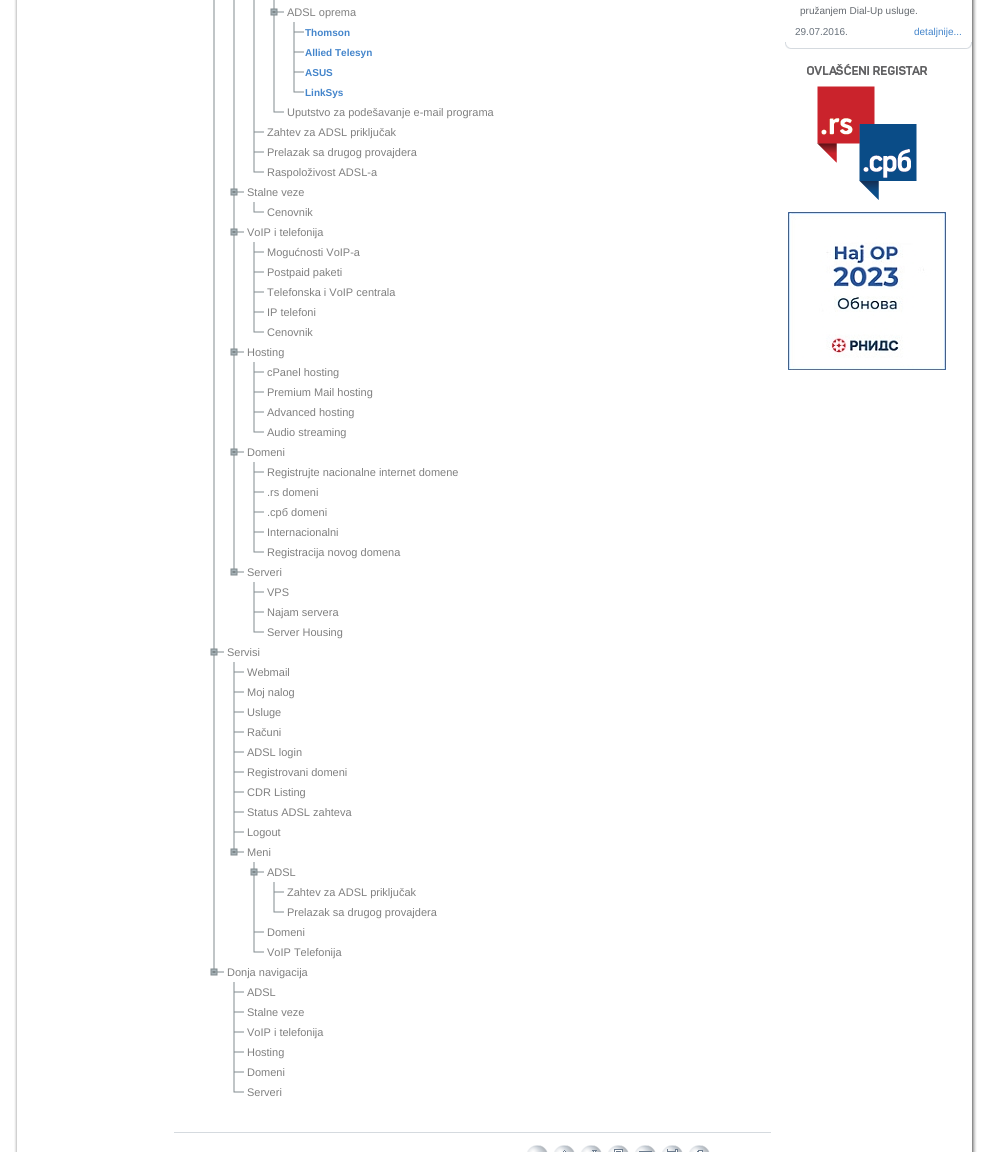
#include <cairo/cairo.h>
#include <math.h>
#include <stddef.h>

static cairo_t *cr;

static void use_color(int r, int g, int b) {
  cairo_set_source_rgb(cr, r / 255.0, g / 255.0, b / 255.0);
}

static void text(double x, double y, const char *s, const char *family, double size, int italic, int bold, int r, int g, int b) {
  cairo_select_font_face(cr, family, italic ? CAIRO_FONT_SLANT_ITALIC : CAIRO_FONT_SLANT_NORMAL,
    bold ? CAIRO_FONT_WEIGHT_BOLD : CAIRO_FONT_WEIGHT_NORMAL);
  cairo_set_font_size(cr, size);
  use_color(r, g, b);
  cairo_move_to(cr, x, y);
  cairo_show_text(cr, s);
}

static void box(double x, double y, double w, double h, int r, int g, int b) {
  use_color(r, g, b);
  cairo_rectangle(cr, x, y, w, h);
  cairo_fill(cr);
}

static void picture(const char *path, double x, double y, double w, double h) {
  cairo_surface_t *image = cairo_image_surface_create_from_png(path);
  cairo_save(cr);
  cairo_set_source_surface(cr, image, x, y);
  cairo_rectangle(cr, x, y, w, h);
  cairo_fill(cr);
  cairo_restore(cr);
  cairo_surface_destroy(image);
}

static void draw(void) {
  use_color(255, 255, 255);
  cairo_paint(cr);
  picture("img_01.png", 14, 0, 963, 1152);
  box(213, 0, 2, 642, 192, 197, 199);
  box(233, 0, 2, 182, 192, 197, 199);
  box(253, 0, 2, 122, 192, 197, 199);
  box(273, 0, 2, 2, 192, 197, 199);
  picture("img_02.png", 270, 2, 14, 20);
  box(273, 22, 2, 80, 192, 197, 199);
  picture("img_03.png", 293, 22, 11, 20);
  picture("img_03.png", 293, 42, 11, 20);
  picture("img_03.png", 293, 62, 11, 20);
  picture("img_04.png", 293, 82, 11, 11);
  picture("img_04.png", 273, 102, 11, 11);
  picture("img_03.png", 253, 122, 11, 20);
  picture("img_03.png", 253, 142, 11, 20);
  picture("img_04.png", 253, 162, 11, 11);
  picture("img_02.png", 230, 182, 14, 20);
  box(233, 202, 2, 20, 192, 197, 199);
  picture("img_04.png", 253, 202, 11, 11);
  picture("img_02.png", 230, 222, 14, 20);
  box(233, 242, 2, 100, 192, 197, 199);
  picture("img_03.png", 253, 242, 11, 20);
  picture("img_03.png", 253, 262, 11, 20);
  picture("img_03.png", 253, 282, 11, 20);
  picture("img_03.png", 253, 302, 11, 20);
  picture("img_04.png", 253, 322, 11, 11);
  picture("img_02.png", 230, 342, 14, 20);
  box(233, 362, 2, 80, 192, 197, 199);
  picture("img_03.png", 253, 362, 11, 20);
  picture("img_03.png", 253, 382, 11, 20);
  picture("img_03.png", 253, 402, 11, 20);
  picture("img_04.png", 253, 422, 11, 11);
  picture("img_02.png", 230, 442, 14, 20);
  box(233, 462, 2, 100, 192, 197, 199);
  picture("img_03.png", 253, 462, 11, 20);
  picture("img_03.png", 253, 482, 11, 20);
  picture("img_03.png", 253, 502, 11, 20);
  picture("img_03.png", 253, 522, 11, 20);
  picture("img_04.png", 253, 542, 11, 11);
  picture("img_05.png", 230, 562, 14, 14);
  picture("img_03.png", 253, 582, 11, 20);
  picture("img_03.png", 253, 602, 11, 20);
  picture("img_04.png", 253, 622, 11, 11);
  picture("img_02.png", 210, 642, 14, 20);
  box(213, 662, 2, 300, 192, 197, 199);
  picture("img_03.png", 233, 662, 11, 20);
  picture("img_03.png", 233, 682, 11, 20);
  picture("img_03.png", 233, 702, 11, 20);
  picture("img_03.png", 233, 722, 11, 20);
  picture("img_03.png", 233, 742, 11, 20);
  picture("img_03.png", 233, 762, 11, 20);
  picture("img_03.png", 233, 782, 11, 20);
  picture("img_03.png", 233, 802, 11, 20);
  picture("img_03.png", 233, 822, 11, 20);
  picture("img_05.png", 230, 842, 14, 14);
  picture("img_02.png", 250, 862, 14, 20);
  box(253, 882, 2, 40, 192, 197, 199);
  picture("img_03.png", 273, 882, 11, 20);
  picture("img_04.png", 273, 902, 11, 11);
  picture("img_03.png", 253, 922, 11, 20);
  picture("img_04.png", 253, 942, 11, 11);
  picture("img_05.png", 210, 962, 14, 14);
  picture("img_03.png", 233, 982, 11, 20);
  picture("img_03.png", 233, 1002, 11, 20);
  picture("img_03.png", 233, 1022, 11, 20);
  picture("img_03.png", 233, 1042, 11, 20);
  picture("img_03.png", 233, 1062, 11, 20);
  picture("img_04.png", 233, 1082, 11, 11);
  box(174, 1132, 597, 1, 213, 218, 223);
  picture("img_06.png", 527, 1145, 21, 7);
  picture("img_07.png", 554, 1145, 21, 7);
  picture("img_08.png", 581, 1145, 21, 7);
  picture("img_09.png", 608, 1145, 21, 7);
  picture("img_10.png", 635, 1145, 21, 7);
  picture("img_11.png", 662, 1145, 21, 7);
  picture("img_12.png", 689, 1145, 21, 7);
  picture("img_13.png", 785, 42, 187, 7);
  picture("img_14.png", 807, 63, 121, 137);
  picture("img_15.png", 788, 212, 158, 158);
  text(287, 16, "ADSL oprema", "Liberation Sans", 11, 0, 0, 128, 128, 128);
  text(305, 36, "Thomson", "Liberation Sans", 10, 0, 1, 68, 133, 203);
  text(305, 56, "Allied Telesyn", "Liberation Sans", 10, 0, 1, 68, 133, 203);
  text(305, 76, "ASUS", "Liberation Sans", 10, 0, 1, 68, 133, 203);
  text(305, 96, "LinkSys", "Liberation Sans", 10, 0, 1, 68, 133, 203);
  text(287, 116, "Uputstvo za podešavanje e-mail programa", "Liberation Sans", 11, 0, 0, 128, 128, 128);
  text(267, 136, "Zahtev za ADSL priključak", "Liberation Sans", 11, 0, 0, 128, 128, 128);
  text(267, 156, "Prelazak sa drugog provajdera", "Liberation Sans", 11, 0, 0, 128, 128, 128);
  text(267, 176, "Raspoloživost ADSL-a", "Liberation Sans", 11, 0, 0, 128, 128, 128);
  text(247, 196, "Stalne veze", "Liberation Sans", 11, 0, 0, 128, 128, 128);
  text(267, 216, "Cenovnik", "Liberation Sans", 11, 0, 0, 128, 128, 128);
  text(247, 236, "VoIP i telefonija", "Liberation Sans", 11, 0, 0, 128, 128, 128);
  text(267, 256, "Mogućnosti VoIP-a", "Liberation Sans", 11, 0, 0, 128, 128, 128);
  text(267, 276, "Postpaid paketi", "Liberation Sans", 11, 0, 0, 128, 128, 128);
  text(267, 296, "Telefonska i VoIP centrala", "Liberation Sans", 11, 0, 0, 128, 128, 128);
  text(267, 316, "IP telefoni", "Liberation Sans", 11, 0, 0, 128, 128, 128);
  text(267, 336, "Cenovnik", "Liberation Sans", 11, 0, 0, 128, 128, 128);
  text(247, 356, "Hosting", "Liberation Sans", 11, 0, 0, 128, 128, 128);
  text(267, 376, "cPanel hosting", "Liberation Sans", 11, 0, 0, 128, 128, 128);
  text(267, 396, "Premium Mail hosting", "Liberation Sans", 11, 0, 0, 128, 128, 128);
  text(267, 416, "Advanced hosting", "Liberation Sans", 11, 0, 0, 128, 128, 128);
  text(267, 436, "Audio streaming", "Liberation Sans", 11, 0, 0, 128, 128, 128);
  text(247, 456, "Domeni", "Liberation Sans", 11, 0, 0, 128, 128, 128);
  text(267, 476, "Registrujte nacionalne internet domene", "Liberation Sans", 11, 0, 0, 128, 128, 128);
  text(267, 496, ".rs domeni", "Liberation Sans", 11, 0, 0, 128, 128, 128);
  text(267, 516, ".срб domeni", "Liberation Sans", 11, 0, 0, 128, 128, 128);
  text(267, 536, "Internacionalni", "Liberation Sans", 11, 0, 0, 128, 128, 128);
  text(267, 556, "Registracija novog domena", "Liberation Sans", 11, 0, 0, 128, 128, 128);
  text(247, 576, "Serveri", "Liberation Sans", 11, 0, 0, 128, 128, 128);
  text(267, 596, "VPS", "Liberation Sans", 11, 0, 0, 128, 128, 128);
  text(267, 616, "Najam servera", "Liberation Sans", 11, 0, 0, 128, 128, 128);
  text(267, 636, "Server Housing", "Liberation Sans", 11, 0, 0, 128, 128, 128);
  text(227, 656, "Servisi", "Liberation Sans", 11, 0, 0, 128, 128, 128);
  text(247, 676, "Webmail", "Liberation Sans", 11, 0, 0, 128, 128, 128);
  text(247, 696, "Moj nalog", "Liberation Sans", 11, 0, 0, 128, 128, 128);
  text(247, 716, "Usluge", "Liberation Sans", 11, 0, 0, 128, 128, 128);
  text(247, 736, "Računi", "Liberation Sans", 11, 0, 0, 128, 128, 128);
  text(247, 756, "ADSL login", "Liberation Sans", 11, 0, 0, 128, 128, 128);
  text(247, 776, "Registrovani domeni", "Liberation Sans", 11, 0, 0, 128, 128, 128);
  text(247, 796, "CDR Listing", "Liberation Sans", 11, 0, 0, 128, 128, 128);
  text(247, 816, "Status ADSL zahteva", "Liberation Sans", 11, 0, 0, 128, 128, 128);
  text(247, 836, "Logout", "Liberation Sans", 11, 0, 0, 128, 128, 128);
  text(247, 856, "Meni", "Liberation Sans", 11, 0, 0, 128, 128, 128);
  text(267, 876, "ADSL", "Liberation Sans", 11, 0, 0, 128, 128, 128);
  text(287, 896, "Zahtev za ADSL priključak", "Liberation Sans", 11, 0, 0, 128, 128, 128);
  text(287, 916, "Prelazak sa drugog provajdera", "Liberation Sans", 11, 0, 0, 128, 128, 128);
  text(267, 936, "Domeni", "Liberation Sans", 11, 0, 0, 128, 128, 128);
  text(267, 956, "VoIP Telefonija", "Liberation Sans", 11, 0, 0, 128, 128, 128);
  text(227, 976, "Donja navigacija", "Liberation Sans", 11, 0, 0, 128, 128, 128);
  text(247, 996, "ADSL", "Liberation Sans", 11, 0, 0, 128, 128, 128);
  text(247, 1016, "Stalne veze", "Liberation Sans", 11, 0, 0, 128, 128, 128);
  text(247, 1036, "VoIP i telefonija", "Liberation Sans", 11, 0, 0, 128, 128, 128);
  text(247, 1056, "Hosting", "Liberation Sans", 11, 0, 0, 128, 128, 128);
  text(247, 1076, "Domeni", "Liberation Sans", 11, 0, 0, 128, 128, 128);
  text(247, 1096, "Serveri", "Liberation Sans", 11, 0, 0, 128, 128, 128);
  text(800, 14, "pružanjem Dial-Up usluge.", "Liberation Sans", 10, 0, 0, 100, 105, 111);
  text(795, 35, "29.07.2016.", "Liberation Sans", 10, 0, 0, 104, 113, 123);
  text(914, 35, "detaljnije...", "Liberation Sans", 10, 0, 0, 68, 133, 203);
}

int main(void) {
  cairo_surface_t *surface = cairo_image_surface_create(CAIRO_FORMAT_RGB24, 991, 1152);
  cr = cairo_create(surface);
  cairo_font_options_t *options = cairo_font_options_create();
  cairo_font_options_set_hint_metrics(options, CAIRO_HINT_METRICS_OFF);
  cairo_font_options_set_hint_style(options, CAIRO_HINT_STYLE_NONE);
  cairo_set_font_options(cr, options);
  cairo_set_miter_limit(cr, 4);
  draw();
  cairo_surface_write_to_png(surface, "out.png");
  cairo_font_options_destroy(options);
  cairo_destroy(cr);
  cairo_surface_destroy(surface);
  return 0;
}
